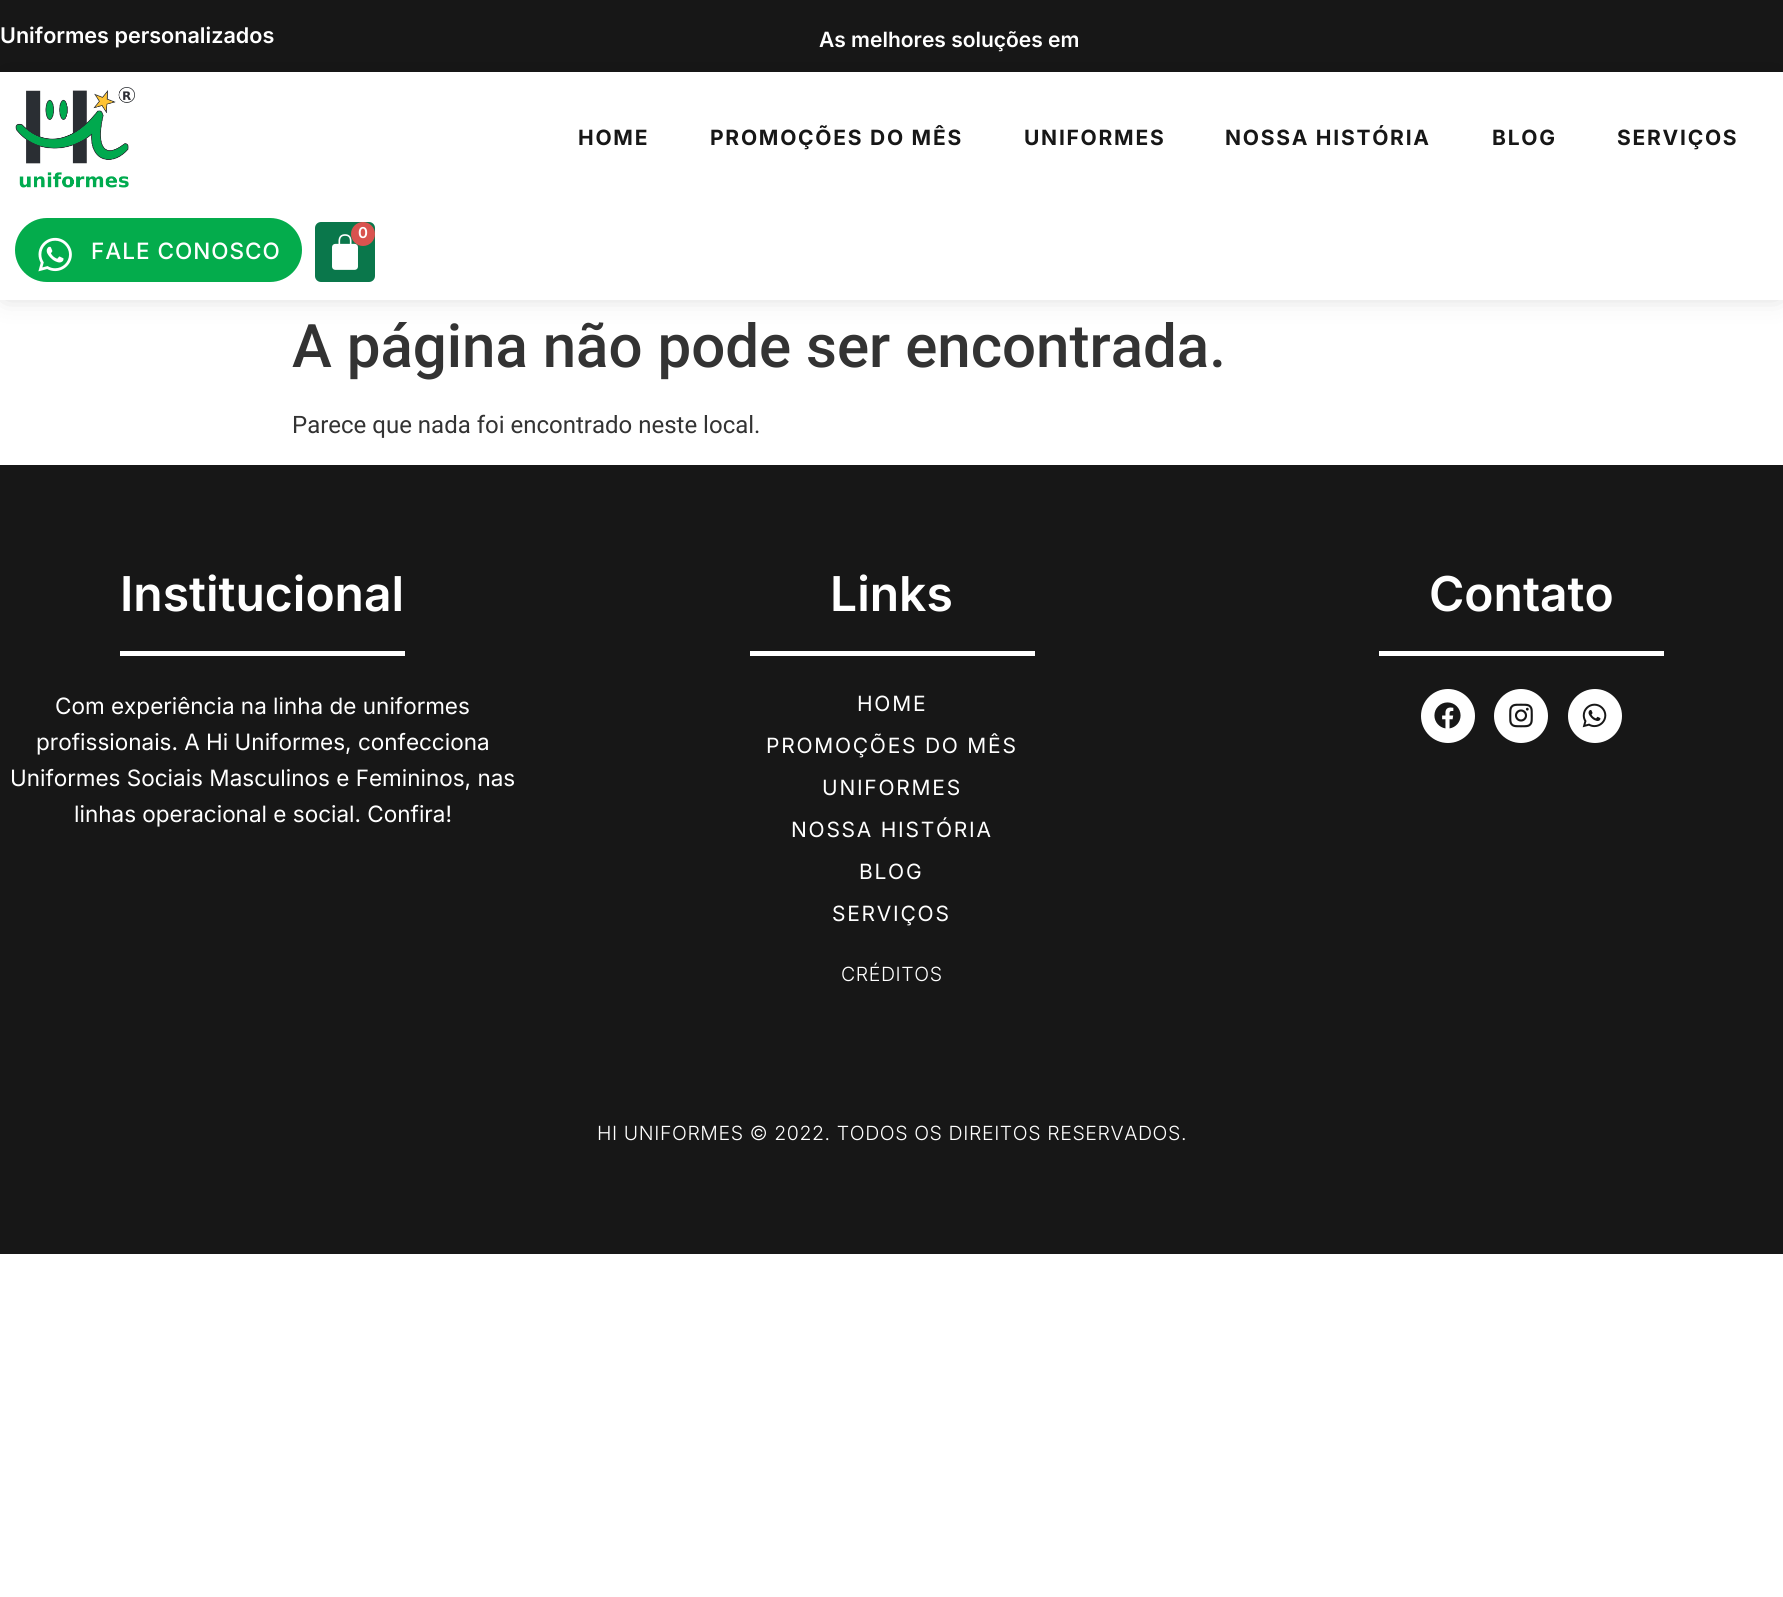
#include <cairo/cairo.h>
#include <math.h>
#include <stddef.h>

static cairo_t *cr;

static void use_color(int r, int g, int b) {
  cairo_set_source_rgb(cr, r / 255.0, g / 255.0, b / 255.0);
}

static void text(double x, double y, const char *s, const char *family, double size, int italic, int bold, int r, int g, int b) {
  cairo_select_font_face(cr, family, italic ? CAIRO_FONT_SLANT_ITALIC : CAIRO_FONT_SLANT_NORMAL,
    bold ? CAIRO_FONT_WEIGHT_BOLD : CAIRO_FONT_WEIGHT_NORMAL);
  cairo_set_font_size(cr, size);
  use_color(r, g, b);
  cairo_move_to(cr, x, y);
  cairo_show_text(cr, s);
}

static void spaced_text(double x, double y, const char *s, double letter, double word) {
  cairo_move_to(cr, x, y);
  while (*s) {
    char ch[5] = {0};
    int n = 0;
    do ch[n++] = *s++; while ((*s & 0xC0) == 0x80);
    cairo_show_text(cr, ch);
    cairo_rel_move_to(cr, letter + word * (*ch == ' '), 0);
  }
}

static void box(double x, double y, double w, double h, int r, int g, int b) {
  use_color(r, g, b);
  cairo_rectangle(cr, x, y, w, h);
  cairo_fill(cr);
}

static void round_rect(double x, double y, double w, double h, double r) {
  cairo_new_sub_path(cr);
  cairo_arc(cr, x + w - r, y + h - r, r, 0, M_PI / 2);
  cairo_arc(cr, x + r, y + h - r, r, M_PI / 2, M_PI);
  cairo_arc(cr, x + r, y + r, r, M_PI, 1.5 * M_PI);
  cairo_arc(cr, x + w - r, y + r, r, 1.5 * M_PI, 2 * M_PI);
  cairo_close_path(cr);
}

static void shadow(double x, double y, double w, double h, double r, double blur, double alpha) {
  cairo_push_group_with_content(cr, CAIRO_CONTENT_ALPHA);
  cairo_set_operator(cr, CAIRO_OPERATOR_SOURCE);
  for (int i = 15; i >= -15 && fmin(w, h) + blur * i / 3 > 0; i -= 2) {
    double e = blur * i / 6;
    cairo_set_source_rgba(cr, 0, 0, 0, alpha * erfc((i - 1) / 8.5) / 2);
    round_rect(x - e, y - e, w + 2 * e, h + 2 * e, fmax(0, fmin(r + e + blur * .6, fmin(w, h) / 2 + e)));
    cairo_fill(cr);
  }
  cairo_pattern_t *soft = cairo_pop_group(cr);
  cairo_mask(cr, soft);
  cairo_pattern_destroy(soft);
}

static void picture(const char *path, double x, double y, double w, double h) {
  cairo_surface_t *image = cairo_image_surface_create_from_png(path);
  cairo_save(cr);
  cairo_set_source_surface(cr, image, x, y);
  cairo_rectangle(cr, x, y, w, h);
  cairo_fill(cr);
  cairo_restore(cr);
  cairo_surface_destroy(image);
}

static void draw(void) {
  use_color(255, 255, 255);
  cairo_paint(cr);
  box(0, 0, 1783, 72, 23, 23, 23);
  cairo_save(cr);
  cairo_set_fill_rule(cr, CAIRO_FILL_RULE_EVEN_ODD);
  cairo_new_path(cr);
  cairo_move_to(cr, 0, 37);
  cairo_line_to(cr, 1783, 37);
  cairo_line_to(cr, 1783, 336);
  cairo_line_to(cr, 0, 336);
  cairo_close_path(cr);
  cairo_move_to(cr, 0, 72);
  cairo_line_to(cr, 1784, 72);
  cairo_line_to(cr, 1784, 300);
  cairo_line_to(cr, 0, 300);
  cairo_close_path(cr);
  cairo_clip(cr);
  use_color(0, 0, 0);
  shadow(5, 77, 1774, 219, 0, 13, 0.17);
  cairo_restore(cr);
  picture("img_01.png", 15, 87, 120, 101);
  use_color(10, 119, 75);
  round_rect(315, 222, 60, 60, 6);
  cairo_fill(cr);
  picture("img_02.png", 332, 234, 26, 36);
  use_color(217, 83, 79);
  cairo_arc(cr, 363, 234, 12, 0, 2 * M_PI);
  cairo_fill(cr);
  use_color(4, 172, 76);
  round_rect(15, 218, 287, 64, 32);
  cairo_fill(cr);
  picture("img_03.png", 38, 237, 34, 35);
  box(0, 465, 1783, 789, 23, 23, 23);
  box(120, 651, 285, 5, 255, 255, 255);
  box(750, 651, 285, 5, 255, 255, 255);
  box(1379, 651, 285, 5, 255, 255, 255);
  cairo_arc(cr, 1448, 716, 27, 0, 2 * M_PI);
  cairo_fill(cr);
  picture("img_04.png", 1434, 702, 27, 27);
  cairo_arc(cr, 1521, 716, 27, 0, 2 * M_PI);
  cairo_fill(cr);
  picture("img_05.png", 1509, 703, 24, 25);
  cairo_arc(cr, 1595, 716, 27, 0, 2 * M_PI);
  cairo_fill(cr);
  picture("img_06.png", 1582, 703, 25, 25);
  text(0, 43, "Uniformes personalizados", "Inter SemiBold", 21.6, 0, 0, 255, 255, 255);
  text(819, 47, "As melhores soluções em", "Inter SemiBold", 21, 0, 0, 255, 255, 255);
  cairo_select_font_face(cr, "Inter", CAIRO_FONT_SLANT_NORMAL, CAIRO_FONT_WEIGHT_BOLD);
  use_color(23, 23, 23);
  spaced_text(578, 145, "HOME", 1.75, 0);
  spaced_text(710, 145, "PROMOÇÕES DO MÊS", 1.75, 0);
  spaced_text(1024, 145, "UNIFORMES", 1.75, 0);
  spaced_text(1225, 145, "NOSSA HISTÓRIA", 1.75, 0);
  spaced_text(1492, 145, "BLOG", 1.75, 0);
  spaced_text(1617, 145, "SERVIÇOS", 1.75, 0);
  cairo_select_font_face(cr, "Inter SemiBold", CAIRO_FONT_SLANT_NORMAL, CAIRO_FONT_WEIGHT_NORMAL);
  cairo_set_font_size(cr, 15);
  use_color(255, 255, 255);
  spaced_text(358, 238, "0", 1, 0);
  cairo_select_font_face(cr, "Inter Medium", CAIRO_FONT_SLANT_NORMAL, CAIRO_FONT_WEIGHT_NORMAL);
  cairo_set_font_size(cr, 22.5);
  spaced_text(91, 259, "FALE CONOSCO", 1, 0);
  text(292, 367, "A página não pode ser encontrada.", "Roboto Medium", 60, 0, 0, 51, 51, 51);
  text(292, 433, "Parece que nada foi encontrado neste local.", "Roboto", 24, 0, 0, 51, 51, 51);
  text(120, 611, "Institucional", "Inter SemiBold", 48, 0, 0, 255, 255, 255);
  text(55, 714, "Com experiência na linha de uniformes", "Inter", 22.5, 0, 0, 255, 255, 255);
  text(36, 750, "profissionais. A Hi Uniformes, confecciona", "Inter", 22.5, 0, 0, 255, 255, 255);
  text(10, 786, "Uniformes Sociais Masculinos e Femininos, nas", "Inter", 22.5, 0, 0, 255, 255, 255);
  text(74, 822, "linhas operacional e social. Confira!", "Inter", 22.5, 0, 0, 255, 255, 255);
  text(830, 611, "Links", "Inter SemiBold", 48, 0, 0, 255, 255, 255);
  cairo_select_font_face(cr, "Inter", CAIRO_FONT_SLANT_NORMAL, CAIRO_FONT_WEIGHT_NORMAL);
  cairo_set_font_size(cr, 21);
  spaced_text(857, 711, "HOME", 1.75, 0);
  spaced_text(766, 753, "PROMOÇÕES DO MÊS", 1.75, 0);
  spaced_text(822, 795, "UNIFORMES", 1.75, 0);
  spaced_text(791, 837, "NOSSA HISTÓRIA", 1.75, 0);
  spaced_text(859, 879, "BLOG", 1.75, 0);
  spaced_text(832, 921, "SERVIÇOS", 1.75, 0);
  cairo_select_font_face(cr, "Inter Light", CAIRO_FONT_SLANT_NORMAL, CAIRO_FONT_WEIGHT_NORMAL);
  cairo_set_font_size(cr, 19.5);
  spaced_text(841, 981, "CRÉDITOS", 0.6, 0);
  text(1429, 611, "Contato", "Inter SemiBold", 48, 0, 0, 255, 255, 255);
  cairo_select_font_face(cr, "Inter Light", CAIRO_FONT_SLANT_NORMAL, CAIRO_FONT_WEIGHT_NORMAL);
  cairo_set_font_size(cr, 19.5);
  spaced_text(597, 1140, "HI UNIFORMES © 2022. TODOS OS DIREITOS RESERVADOS.", 0.6, 0);
}

int main(void) {
  cairo_surface_t *surface = cairo_image_surface_create(CAIRO_FORMAT_RGB24, 1783, 1597);
  cr = cairo_create(surface);
  cairo_font_options_t *options = cairo_font_options_create();
  cairo_font_options_set_hint_metrics(options, CAIRO_HINT_METRICS_OFF);
  cairo_font_options_set_hint_style(options, CAIRO_HINT_STYLE_NONE);
  cairo_set_font_options(cr, options);
  cairo_set_miter_limit(cr, 4);
  draw();
  cairo_surface_write_to_png(surface, "out.png");
  cairo_font_options_destroy(options);
  cairo_destroy(cr);
  cairo_surface_destroy(surface);
  return 0;
}
